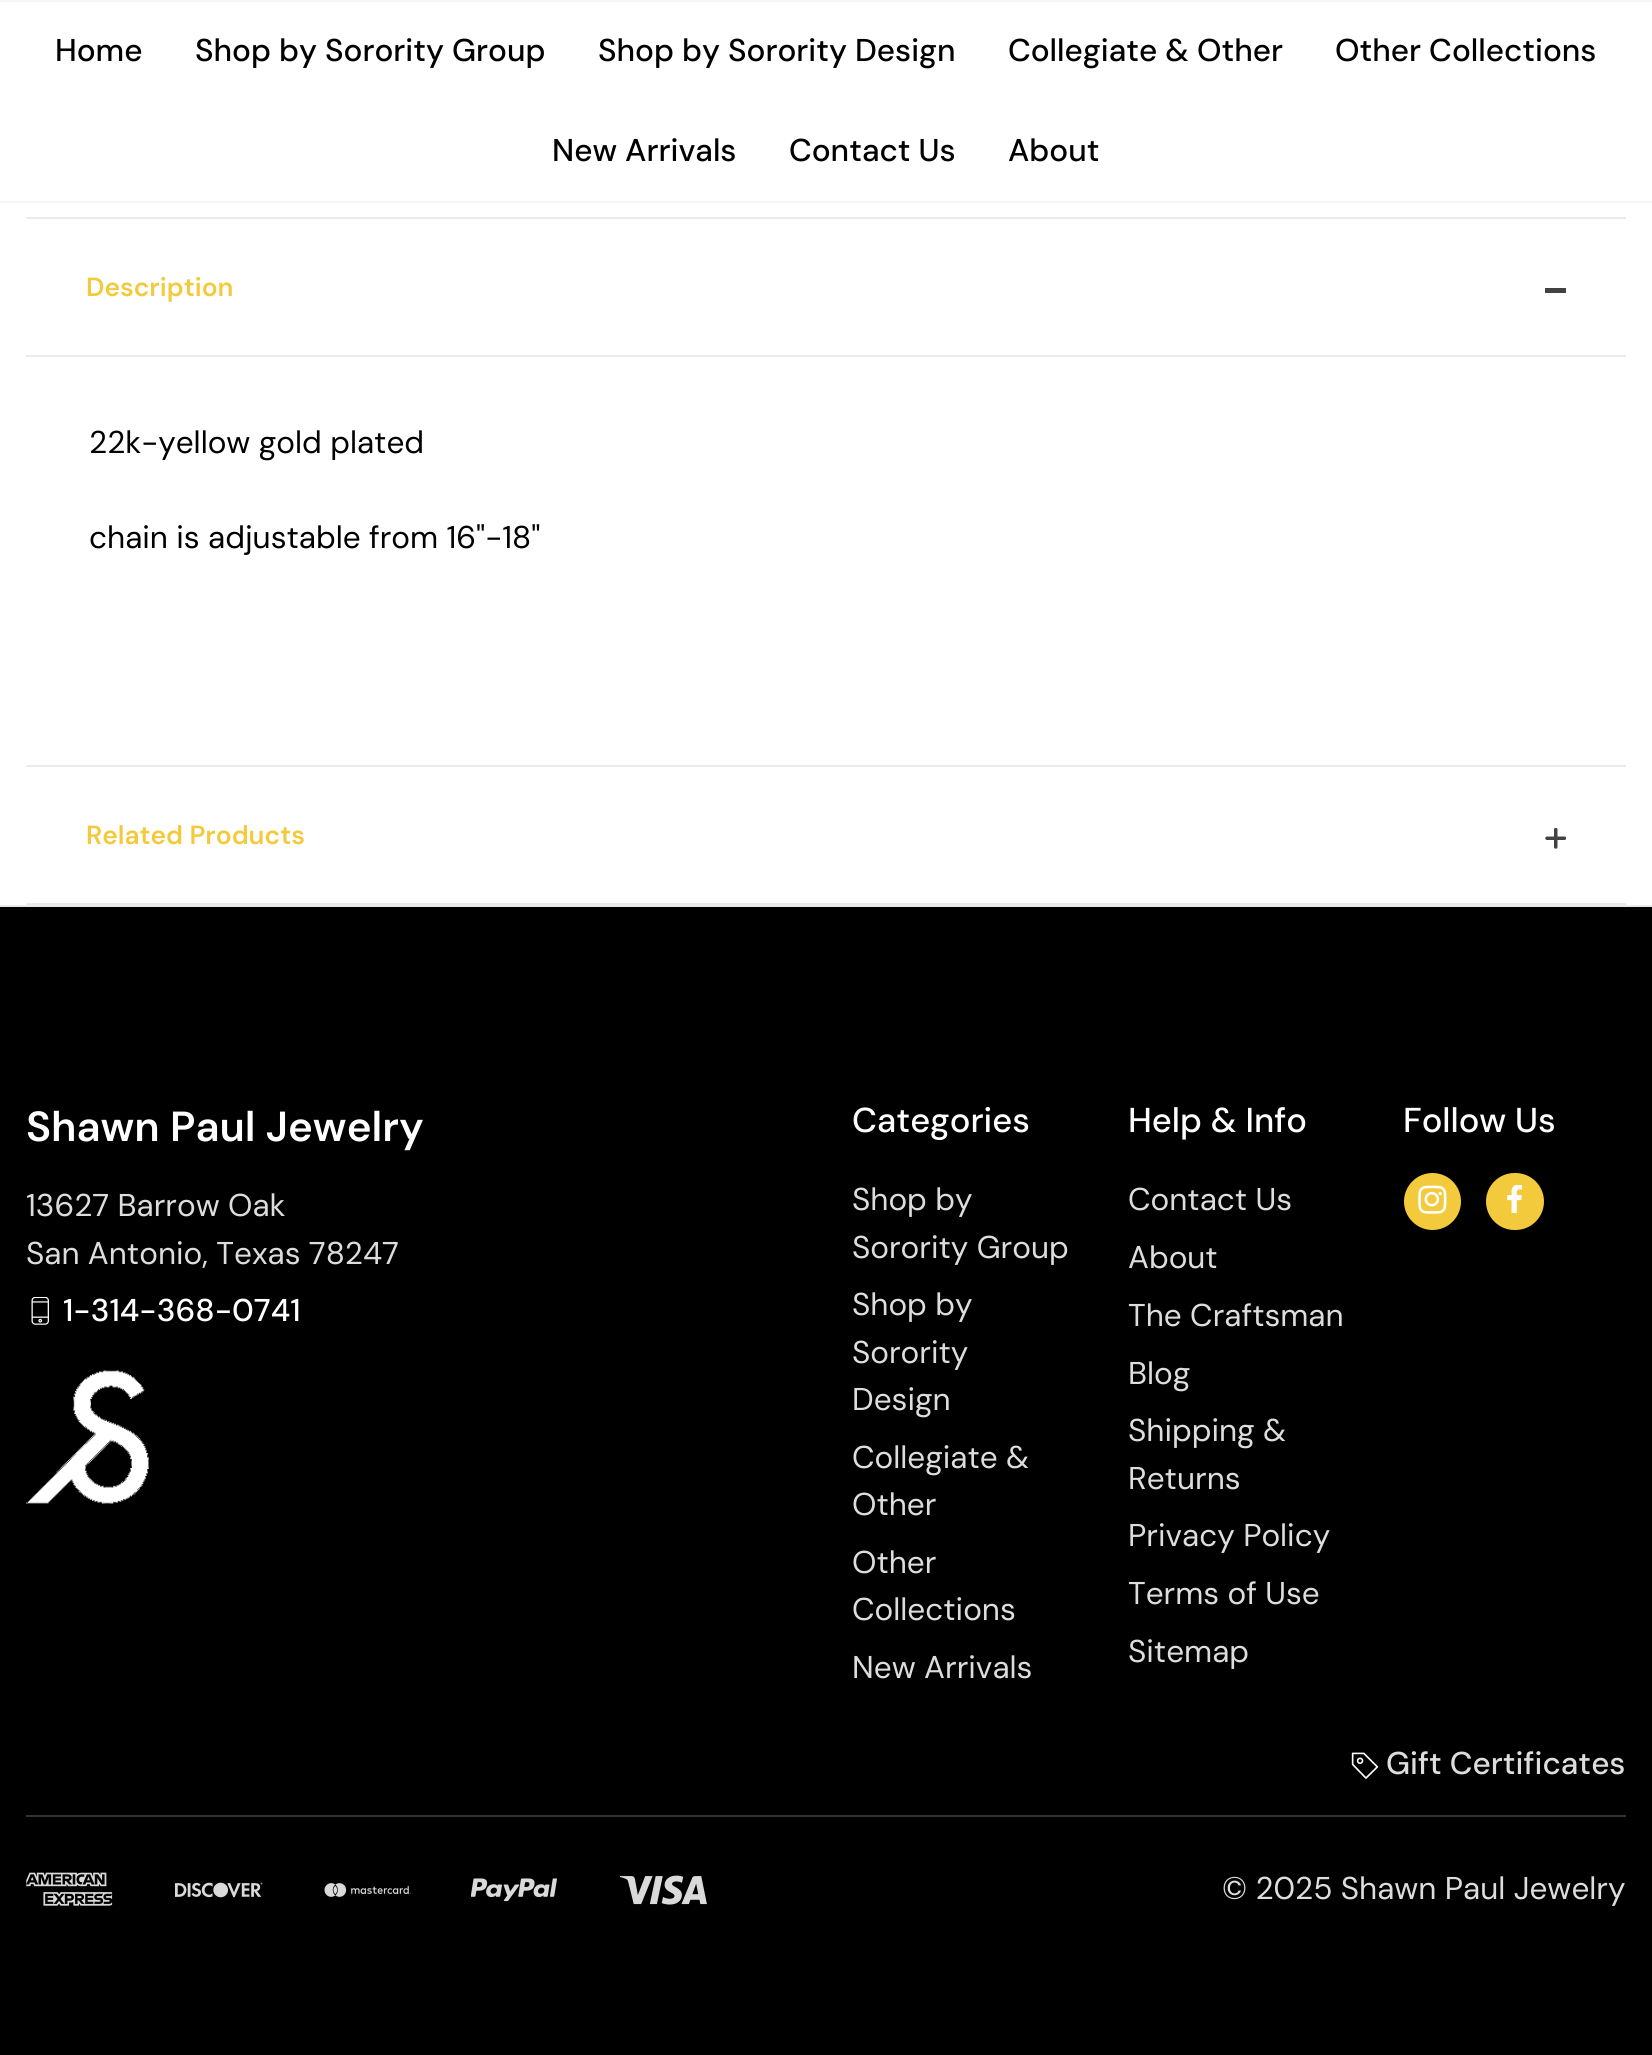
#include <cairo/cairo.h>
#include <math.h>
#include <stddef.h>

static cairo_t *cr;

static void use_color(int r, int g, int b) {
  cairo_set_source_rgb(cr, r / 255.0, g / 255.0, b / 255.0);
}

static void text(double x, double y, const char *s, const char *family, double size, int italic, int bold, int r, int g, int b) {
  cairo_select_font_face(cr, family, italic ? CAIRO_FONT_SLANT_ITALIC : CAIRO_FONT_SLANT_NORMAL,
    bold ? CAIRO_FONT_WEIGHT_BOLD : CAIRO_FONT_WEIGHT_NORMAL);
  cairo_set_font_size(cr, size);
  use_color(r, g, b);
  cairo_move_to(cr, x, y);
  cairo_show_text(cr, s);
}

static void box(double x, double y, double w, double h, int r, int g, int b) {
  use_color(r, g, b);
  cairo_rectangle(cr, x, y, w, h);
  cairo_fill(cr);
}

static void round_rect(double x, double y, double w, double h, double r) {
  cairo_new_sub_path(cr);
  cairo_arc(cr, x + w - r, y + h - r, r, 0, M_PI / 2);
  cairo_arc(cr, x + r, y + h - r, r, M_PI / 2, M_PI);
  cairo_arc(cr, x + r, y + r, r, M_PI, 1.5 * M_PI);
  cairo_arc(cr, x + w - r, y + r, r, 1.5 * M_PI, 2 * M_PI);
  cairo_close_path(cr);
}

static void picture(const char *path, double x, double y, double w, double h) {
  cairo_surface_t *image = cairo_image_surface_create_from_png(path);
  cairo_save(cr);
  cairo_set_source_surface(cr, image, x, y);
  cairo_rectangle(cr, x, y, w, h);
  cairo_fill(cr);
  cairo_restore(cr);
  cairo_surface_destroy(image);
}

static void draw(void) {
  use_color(255, 255, 255);
  cairo_paint(cr);
  box(0, 0, 1652, 2, 245, 245, 245);
  box(0, 201, 1652, 2, 245, 245, 245);
  box(26, 217, 1600, 2, 235, 235, 235);
  box(26, 355, 1600, 2, 235, 235, 235);
  box(1545, 288, 21, 5, 66, 66, 66);
  box(26, 765, 1600, 2, 235, 235, 235);
  box(26, 903, 1600, 2, 235, 235, 235);
  picture("img_01.png", 1545, 828, 21, 21);
  box(0, 907, 1652, 1148, 0, 0, 0);
  box(0, 905, 1652, 2, 235, 235, 235);
  picture("img_02.png", 31, 1297, 18, 28);
  picture("img_03.png", 26, 1370, 123, 134);
  use_color(244, 202, 61);
  cairo_arc(cr, 1432.5, 1201.5, 28.5, 0, 2 * M_PI);
  cairo_fill(cr);
  picture("img_04.png", 1418, 1185, 29, 29);
  round_rect(1486, 1173, 58, 57, 28.5);
  cairo_fill(cr);
  picture("img_05.png", 1507, 1185, 16, 28);
  picture("img_06.png", 1351, 1752, 28, 27);
  box(26, 1815, 1600, 2, 51, 51, 51);
  picture("img_07.png", 26, 1872, 87, 34);
  picture("img_08.png", 175, 1882, 88, 16);
  picture("img_09.png", 324, 1883, 87, 14);
  picture("img_10.png", 471, 1878, 86, 24);
  picture("img_11.png", 620, 1875, 87, 30);
  text(55, 61, "Home", "DM Sans Medium", 31.5, 0, 0, 0, 0, 0);
  text(195, 61, "Shop by Sorority Group", "DM Sans Medium", 31.5, 0, 0, 0, 0, 0);
  text(598, 61, "Shop by Sorority Design", "DM Sans Medium", 31.5, 0, 0, 0, 0, 0);
  text(1008, 61, "Collegiate & Other", "DM Sans Medium", 31.5, 0, 0, 0, 0, 0);
  text(1335, 61, "Other Collections", "DM Sans Medium", 31.5, 0, 0, 0, 0, 0);
  text(552, 161, "New Arrivals", "DM Sans Medium", 31.5, 0, 0, 0, 0, 0);
  text(789, 161, "Contact Us", "DM Sans Medium", 31.5, 0, 0, 0, 0, 0);
  text(1008, 161, "About", "DM Sans Medium", 31.5, 0, 0, 0, 0, 0);
  text(86, 296, "Description", "DM Sans SemiBold", 26.25, 0, 0, 244, 202, 61);
  text(89, 453, "22k-yellow gold plated", "DM Sans", 31.5, 0, 0, 0, 0, 0);
  text(89, 548, "chain is adjustable from 16\"-18\"", "DM Sans", 31.5, 0, 0, 0, 0, 0);
  text(86, 844, "Related Products", "DM Sans SemiBold", 26.25, 0, 0, 244, 202, 61);
  text(26, 1141, "Shawn Paul Jewelry", "DM Sans SemiBold", 42, 0, 0, 255, 255, 255);
  text(26, 1216, "13627 Barrow Oak", "DM Sans", 31.5, 0, 0, 221, 221, 221);
  text(26, 1264, "San Antonio, Texas 78247", "DM Sans", 31.5, 0, 0, 221, 221, 221);
  text(63, 1321, "1-314-368-0741", "DM Sans Medium", 31.5, 0, 0, 255, 255, 255);
  text(852, 1132, "Categories", "DM Sans Medium", 34.5, 0, 0, 255, 255, 255);
  text(852, 1210, "Shop by", "DM Sans", 31.5, 0, 0, 221, 221, 221);
  text(852, 1258, "Sorority Group", "DM Sans", 31.5, 0, 0, 221, 221, 221);
  text(852, 1315, "Shop by", "DM Sans", 31.5, 0, 0, 221, 221, 221);
  text(852, 1363, "Sorority", "DM Sans", 31.5, 0, 0, 221, 221, 221);
  text(852, 1410, "Design", "DM Sans", 31.5, 0, 0, 221, 221, 221);
  text(852, 1468, "Collegiate &", "DM Sans", 31.5, 0, 0, 221, 221, 221);
  text(852, 1515, "Other", "DM Sans", 31.5, 0, 0, 221, 221, 221);
  text(852, 1573, "Other", "DM Sans", 31.5, 0, 0, 221, 221, 221);
  text(852, 1620, "Collections", "DM Sans", 31.5, 0, 0, 221, 221, 221);
  text(852, 1678, "New Arrivals", "DM Sans", 31.5, 0, 0, 221, 221, 221);
  text(1128, 1132, "Help & Info", "DM Sans Medium", 34.5, 0, 0, 255, 255, 255);
  text(1128, 1210, "Contact Us", "DM Sans", 31.5, 0, 0, 221, 221, 221);
  text(1128, 1268, "About", "DM Sans", 31.5, 0, 0, 221, 221, 221);
  text(1128, 1326, "The Craftsman", "DM Sans", 31.5, 0, 0, 221, 221, 221);
  text(1128, 1384, "Blog", "DM Sans", 31.5, 0, 0, 221, 221, 221);
  text(1128, 1441, "Shipping &", "DM Sans", 31.5, 0, 0, 221, 221, 221);
  text(1128, 1489, "Returns", "DM Sans", 31.5, 0, 0, 221, 221, 221);
  text(1128, 1546, "Privacy Policy", "DM Sans", 31.5, 0, 0, 221, 221, 221);
  text(1128, 1604, "Terms of Use", "DM Sans", 31.5, 0, 0, 221, 221, 221);
  text(1128, 1662, "Sitemap", "DM Sans", 31.5, 0, 0, 221, 221, 221);
  text(1403, 1132, "Follow Us", "DM Sans Medium", 34.5, 0, 0, 255, 255, 255);
  text(1386, 1774, "Gift Certificates", "DM Sans Medium", 31.5, 0, 0, 221, 221, 221);
  text(1222, 1899, "© 2025 Shawn Paul Jewelry", "DM Sans", 31.5, 0, 0, 221, 221, 221);
}

int main(void) {
  cairo_surface_t *surface = cairo_image_surface_create(CAIRO_FORMAT_RGB24, 1652, 2055);
  cr = cairo_create(surface);
  cairo_font_options_t *options = cairo_font_options_create();
  cairo_font_options_set_hint_metrics(options, CAIRO_HINT_METRICS_OFF);
  cairo_font_options_set_hint_style(options, CAIRO_HINT_STYLE_NONE);
  cairo_set_font_options(cr, options);
  cairo_set_miter_limit(cr, 4);
  draw();
  cairo_surface_write_to_png(surface, "out.png");
  cairo_font_options_destroy(options);
  cairo_destroy(cr);
  cairo_surface_destroy(surface);
  return 0;
}
